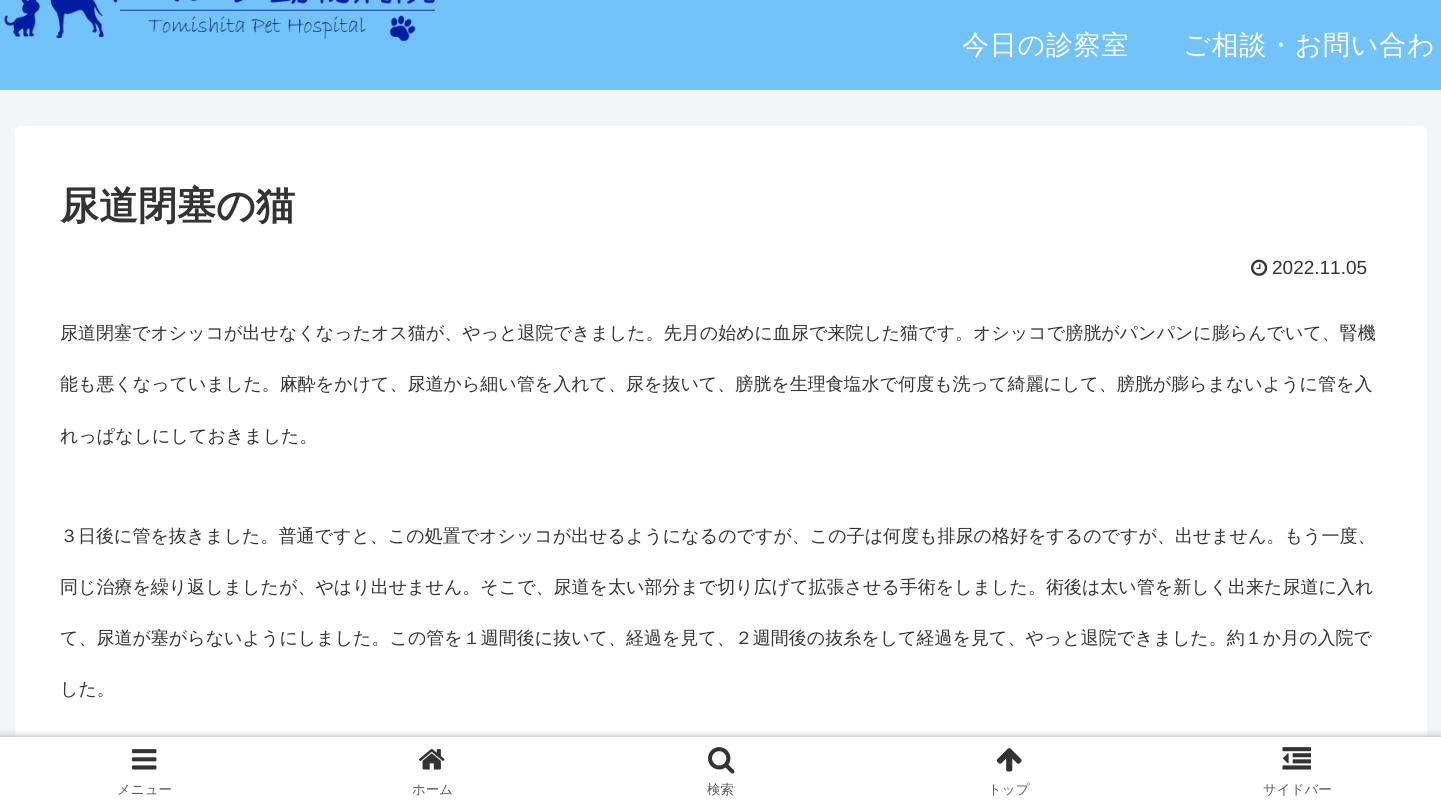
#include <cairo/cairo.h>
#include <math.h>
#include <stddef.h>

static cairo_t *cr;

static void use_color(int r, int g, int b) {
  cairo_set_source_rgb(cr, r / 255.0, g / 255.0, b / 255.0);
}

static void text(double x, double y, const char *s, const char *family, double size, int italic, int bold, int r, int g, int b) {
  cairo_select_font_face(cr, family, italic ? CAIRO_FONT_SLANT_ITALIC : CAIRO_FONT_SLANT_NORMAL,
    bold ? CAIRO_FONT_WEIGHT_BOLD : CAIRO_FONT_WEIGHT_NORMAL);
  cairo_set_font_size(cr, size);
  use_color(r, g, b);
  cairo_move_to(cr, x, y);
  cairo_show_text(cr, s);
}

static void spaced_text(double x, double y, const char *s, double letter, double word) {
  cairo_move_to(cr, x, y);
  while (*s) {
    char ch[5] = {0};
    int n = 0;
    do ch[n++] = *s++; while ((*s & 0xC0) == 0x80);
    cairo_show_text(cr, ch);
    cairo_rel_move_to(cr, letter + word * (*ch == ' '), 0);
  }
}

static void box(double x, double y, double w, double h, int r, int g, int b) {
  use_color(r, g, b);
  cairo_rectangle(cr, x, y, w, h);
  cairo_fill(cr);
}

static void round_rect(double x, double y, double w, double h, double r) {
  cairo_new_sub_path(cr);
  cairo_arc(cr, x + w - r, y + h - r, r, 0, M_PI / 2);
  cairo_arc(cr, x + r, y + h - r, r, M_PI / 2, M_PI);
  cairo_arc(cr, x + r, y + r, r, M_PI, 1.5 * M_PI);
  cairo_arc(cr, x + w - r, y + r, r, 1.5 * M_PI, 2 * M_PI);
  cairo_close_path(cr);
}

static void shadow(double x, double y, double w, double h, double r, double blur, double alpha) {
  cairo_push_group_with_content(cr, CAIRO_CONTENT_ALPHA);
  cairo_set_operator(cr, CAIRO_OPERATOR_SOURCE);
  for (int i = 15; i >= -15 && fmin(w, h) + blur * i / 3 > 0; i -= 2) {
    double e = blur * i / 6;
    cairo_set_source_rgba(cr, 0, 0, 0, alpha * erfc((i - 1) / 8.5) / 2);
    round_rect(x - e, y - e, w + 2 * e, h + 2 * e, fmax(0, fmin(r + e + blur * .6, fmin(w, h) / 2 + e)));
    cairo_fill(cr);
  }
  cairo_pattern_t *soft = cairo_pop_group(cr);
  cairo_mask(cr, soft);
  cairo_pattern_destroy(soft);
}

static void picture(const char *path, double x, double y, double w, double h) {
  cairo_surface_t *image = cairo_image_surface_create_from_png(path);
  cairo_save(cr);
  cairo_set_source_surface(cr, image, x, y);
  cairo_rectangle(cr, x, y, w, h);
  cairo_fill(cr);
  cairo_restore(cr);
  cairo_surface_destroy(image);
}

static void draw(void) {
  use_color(244, 245, 247);
  cairo_paint(cr);
  box(0, 0, 1441, 90, 115, 195, 251);
  picture("img_01.png", 4, 0, 431, 42);
  use_color(255, 255, 255);
  round_rect(15, 126, 1412, 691, 6);
  cairo_fill(cr);
  picture("img_02.png", 1251, 259, 17, 17);
  use_color(169, 169, 169);
  shadow(0, 737, 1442, 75, 0, 4, 1);
  box(0, 737, 1441, 74, 255, 255, 255);
  picture("img_03.png", 132, 749, 25, 21);
  picture("img_04.png", 419, 749, 26, 21);
  picture("img_05.png", 708, 747, 27, 27);
  picture("img_06.png", 996, 748, 26, 24);
  picture("img_07.png", 1282, 747, 29, 23);
  cairo_select_font_face(cr, "WenQuanYi Zen Hei Medium", CAIRO_FONT_SLANT_NORMAL, CAIRO_FONT_WEIGHT_NORMAL);
  cairo_set_font_size(cr, 27);
  spaced_text(962, 54, "今日の診察室", 0.75, 0);
  spaced_text(1183, 54, "ご相談・お問い合わ", 0.75, 0);
  text(60, 219, "尿道閉塞の猫", "WenQuanYi Zen Hei", 39, 0, 1, 51, 51, 51);
  text(1272, 274, "2022.11.05", "Liberation Sans", 19, 0, 0, 51, 51, 51);
  text(60, 339, "尿道閉塞でオシッコが出せなくなったオス猫が、やっと退院できました。先月の始めに血尿で来院した猫です。オシッコで膀胱がパンパンに膨らんでいて、腎機", "WenQuanYi Zen Hei Medium", 18, 0, 0, 51, 51, 51);
  text(60, 390, "能も悪くなっていました。麻酔をかけて、尿道から細い管を入れて、尿を抜いて、膀胱を生理食塩水で何度も洗って綺麗にして、膀胱が膨らまないように管を入", "WenQuanYi Zen Hei Medium", 18, 0, 0, 51, 51, 51);
  text(60, 442, "れっぱなしにしておきました。", "WenQuanYi Zen Hei Medium", 18, 0, 0, 51, 51, 51);
  text(60, 542, "３日後に管を抜きました。普通ですと、この処置でオシッコが出せるようになるのですが、この子は何度も排尿の格好をするのですが、出せません。もう一度、", "WenQuanYi Zen Hei Medium", 18, 0, 0, 51, 51, 51);
  text(60, 593, "同じ治療を繰り返しましたが、やはり出せません。そこで、尿道を太い部分まで切り広げて拡張させる手術をしました。術後は太い管を新しく出来た尿道に入れ", "WenQuanYi Zen Hei Medium", 18, 0, 0, 51, 51, 51);
  text(60, 644, "て、尿道が塞がらないようにしました。この管を１週間後に抜いて、経過を見て、２週間後の抜糸をして経過を見て、やっと退院できました。約１か月の入院で", "WenQuanYi Zen Hei Medium", 18, 0, 0, 51, 51, 51);
  text(60, 695, "した。", "WenQuanYi Zen Hei Medium", 18, 0, 0, 51, 51, 51);
  text(117, 794, "メニュー", "WenQuanYi Zen Hei Medium", 13.5, 0, 0, 92, 92, 92);
  text(412, 794, "ホーム", "WenQuanYi Zen Hei Medium", 13.5, 0, 0, 92, 92, 92);
  text(707, 794, "検索", "WenQuanYi Zen Hei Medium", 13.5, 0, 0, 92, 92, 92);
  text(988, 794, "トップ", "WenQuanYi Zen Hei Medium", 13.5, 0, 0, 92, 92, 92);
  text(1263, 794, "サイドバー", "WenQuanYi Zen Hei Medium", 13.5, 0, 0, 92, 92, 92);
}

int main(void) {
  cairo_surface_t *surface = cairo_image_surface_create(CAIRO_FORMAT_RGB24, 1441, 811);
  cr = cairo_create(surface);
  cairo_font_options_t *options = cairo_font_options_create();
  cairo_font_options_set_hint_metrics(options, CAIRO_HINT_METRICS_OFF);
  cairo_font_options_set_hint_style(options, CAIRO_HINT_STYLE_NONE);
  cairo_set_font_options(cr, options);
  cairo_set_miter_limit(cr, 4);
  draw();
  cairo_surface_write_to_png(surface, "out.png");
  cairo_font_options_destroy(options);
  cairo_destroy(cr);
  cairo_surface_destroy(surface);
  return 0;
}
